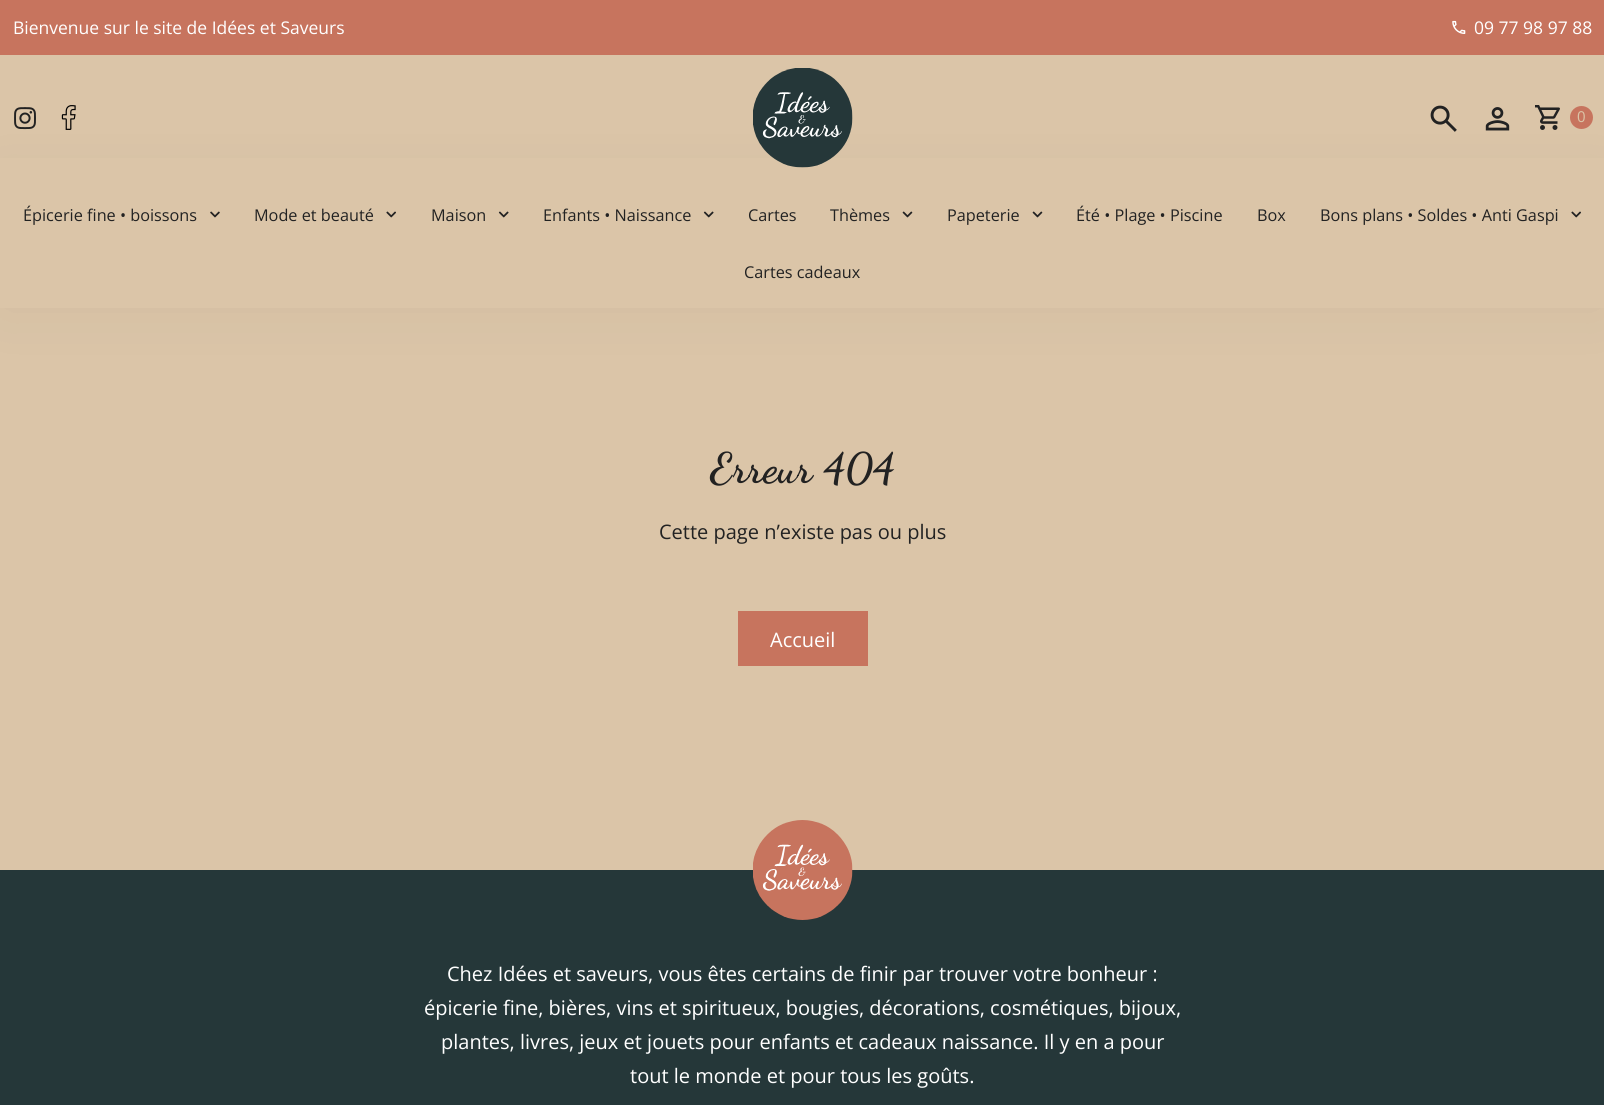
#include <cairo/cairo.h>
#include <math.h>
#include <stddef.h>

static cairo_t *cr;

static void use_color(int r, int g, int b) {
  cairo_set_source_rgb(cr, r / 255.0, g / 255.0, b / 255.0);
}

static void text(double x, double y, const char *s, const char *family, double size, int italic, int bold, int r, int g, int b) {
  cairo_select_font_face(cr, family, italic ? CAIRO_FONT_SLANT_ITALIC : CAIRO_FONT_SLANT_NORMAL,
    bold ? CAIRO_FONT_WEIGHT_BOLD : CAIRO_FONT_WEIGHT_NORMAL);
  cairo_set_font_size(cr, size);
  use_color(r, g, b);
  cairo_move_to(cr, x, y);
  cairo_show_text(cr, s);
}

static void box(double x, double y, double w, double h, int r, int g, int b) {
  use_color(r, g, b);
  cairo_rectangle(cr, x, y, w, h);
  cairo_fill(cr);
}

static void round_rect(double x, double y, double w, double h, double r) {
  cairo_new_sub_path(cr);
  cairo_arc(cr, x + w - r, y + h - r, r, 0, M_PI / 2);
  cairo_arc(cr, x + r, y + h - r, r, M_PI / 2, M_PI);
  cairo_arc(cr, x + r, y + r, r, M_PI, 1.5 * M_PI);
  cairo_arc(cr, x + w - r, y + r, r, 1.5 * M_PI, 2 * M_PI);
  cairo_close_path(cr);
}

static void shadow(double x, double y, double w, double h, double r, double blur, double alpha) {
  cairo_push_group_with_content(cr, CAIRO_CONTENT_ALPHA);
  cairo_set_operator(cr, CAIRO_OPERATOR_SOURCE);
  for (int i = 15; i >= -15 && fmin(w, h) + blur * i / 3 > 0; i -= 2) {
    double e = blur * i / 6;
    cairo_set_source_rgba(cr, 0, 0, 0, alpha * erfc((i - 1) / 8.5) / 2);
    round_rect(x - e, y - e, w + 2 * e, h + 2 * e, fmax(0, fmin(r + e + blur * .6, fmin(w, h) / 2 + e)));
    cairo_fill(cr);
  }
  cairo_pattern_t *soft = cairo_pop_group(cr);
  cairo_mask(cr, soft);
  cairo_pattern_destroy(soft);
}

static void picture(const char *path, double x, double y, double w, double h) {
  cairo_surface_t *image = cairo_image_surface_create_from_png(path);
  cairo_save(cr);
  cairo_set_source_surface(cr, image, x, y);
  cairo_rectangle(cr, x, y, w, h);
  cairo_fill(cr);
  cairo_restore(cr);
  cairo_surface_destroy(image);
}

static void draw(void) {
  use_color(219, 197, 168);
  cairo_paint(cr);
  box(0, 0, 1604, 55, 199, 116, 94);
  picture("img_01.png", 1452, 20, 14, 14);
  use_color(0, 0, 0);
  shadow(0, 180, 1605, 128, 0, 31, 0.05);
  picture("img_02.png", 14, 107, 22, 23);
  picture("img_03.png", 61, 105, 15, 25);
  box(0, 158, 1604, 150, 219, 197, 168);
  picture("img_04.png", 753, 68, 100, 100);
  picture("img_05.png", 1430, 105, 27, 27);
  picture("img_06.png", 1485, 107, 25, 24);
  picture("img_07.png", 1535, 105, 25, 25);
  use_color(199, 116, 94);
  cairo_arc(cr, 1581.5, 117.5, 11.5, 0, 2 * M_PI);
  cairo_fill(cr);
  picture("img_08.png", 210, 211, 10, 7);
  picture("img_09.png", 386, 211, 10, 7);
  picture("img_10.png", 498, 211, 11, 7);
  picture("img_10.png", 703, 211, 11, 7);
  picture("img_11.png", 902, 211, 11, 7);
  picture("img_11.png", 1032, 211, 11, 7);
  picture("img_09.png", 1571, 211, 10, 7);
  box(738, 611, 130, 55, 199, 116, 94);
  box(0, 870, 1604, 235, 37, 55, 57);
  picture("img_12.png", 753, 820, 100, 100);
  text(13, 34, "Bienvenue sur le site de Idées et Saveurs", "Open Sans", 17.5, 0, 0, 255, 255, 255);
  text(1474, 34, "09 77 98 97 88", "Open Sans", 17.5, 0, 0, 255, 255, 255);
  text(1577, 122, "0", "Open Sans", 15, 0, 0, 219, 197, 168);
  text(23, 221, "Épicerie fine • boissons", "Open Sans", 16.25, 0, 0, 34, 34, 34);
  text(254, 221, "Mode et beauté", "Open Sans", 16.25, 0, 0, 34, 34, 34);
  text(431, 221, "Maison", "Open Sans", 16.25, 0, 0, 34, 34, 34);
  text(543, 221, "Enfants • Naissance", "Open Sans", 16.25, 0, 0, 34, 34, 34);
  text(748, 221, "Cartes", "Open Sans", 16.25, 0, 0, 34, 34, 34);
  text(830, 221, "Thèmes", "Open Sans", 16.25, 0, 0, 34, 34, 34);
  text(947, 221, "Papeterie", "Open Sans", 16.25, 0, 0, 34, 34, 34);
  text(1076, 221, "Été • Plage • Piscine", "Open Sans", 16.25, 0, 0, 34, 34, 34);
  text(1257, 221, "Box", "Open Sans", 16.25, 0, 0, 34, 34, 34);
  text(1320, 221, "Bons plans • Soldes • Anti Gaspi", "Open Sans", 16.25, 0, 0, 34, 34, 34);
  text(744, 278, "Cartes cadeaux", "Open Sans", 16.25, 0, 0, 34, 34, 34);
  text(710, 482, "Erreur 404", "Dancing Script", 42.5, 0, 1, 34, 34, 34);
  text(659, 539, "Cette page n’existe pas ou plus", "Open Sans", 20, 0, 0, 34, 34, 34);
  text(770, 647, "Accueil", "Open Sans", 20, 0, 0, 255, 255, 255);
  text(447, 981, "Chez Idées et saveurs, vous êtes certains de finir par trouver votre bonheur :", "Open Sans", 20, 0, 0, 255, 255, 255);
  text(424, 1015, "épicerie fine, bières, vins et spiritueux, bougies, décorations, cosmétiques, bijoux,", "Open Sans", 20, 0, 0, 255, 255, 255);
  text(441, 1049, "plantes, livres, jeux et jouets pour enfants et cadeaux naissance. Il y en a pour", "Open Sans", 20, 0, 0, 255, 255, 255);
  text(630, 1083, "tout le monde et pour tous les goûts.", "Open Sans", 20, 0, 0, 255, 255, 255);
}

int main(void) {
  cairo_surface_t *surface = cairo_image_surface_create(CAIRO_FORMAT_RGB24, 1604, 1105);
  cr = cairo_create(surface);
  cairo_font_options_t *options = cairo_font_options_create();
  cairo_font_options_set_hint_metrics(options, CAIRO_HINT_METRICS_OFF);
  cairo_font_options_set_hint_style(options, CAIRO_HINT_STYLE_NONE);
  cairo_set_font_options(cr, options);
  cairo_set_miter_limit(cr, 4);
  draw();
  cairo_surface_write_to_png(surface, "out.png");
  cairo_font_options_destroy(options);
  cairo_destroy(cr);
  cairo_surface_destroy(surface);
  return 0;
}
